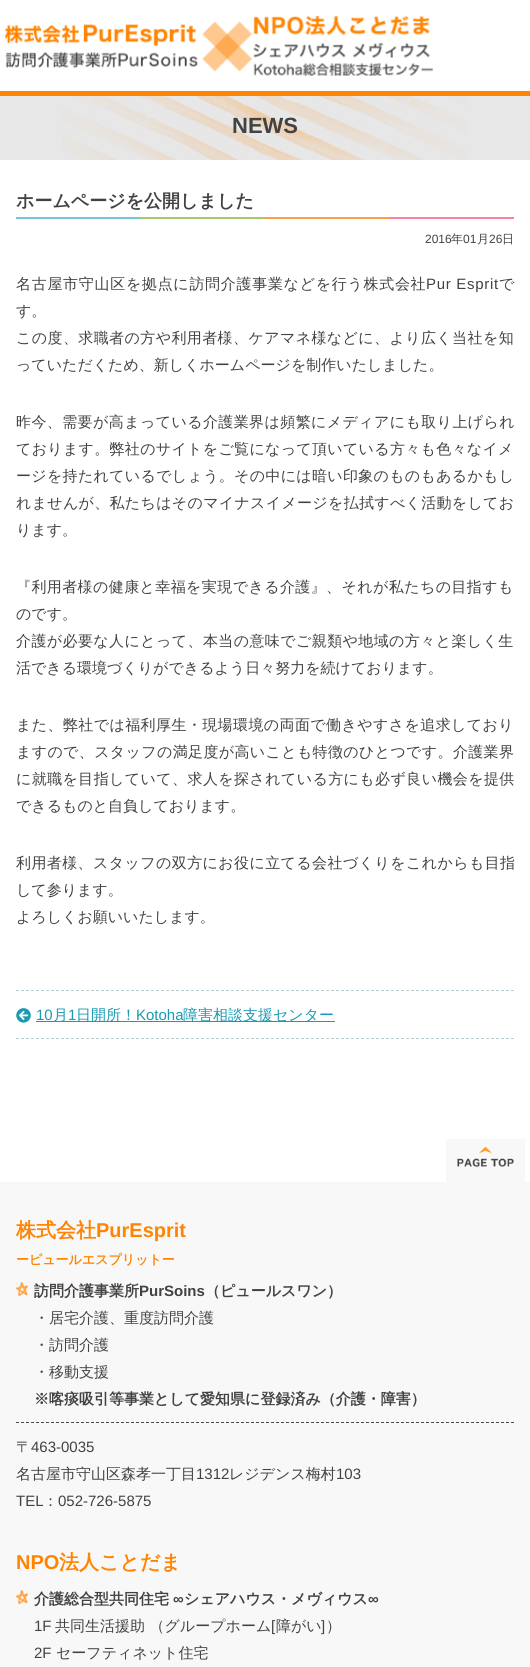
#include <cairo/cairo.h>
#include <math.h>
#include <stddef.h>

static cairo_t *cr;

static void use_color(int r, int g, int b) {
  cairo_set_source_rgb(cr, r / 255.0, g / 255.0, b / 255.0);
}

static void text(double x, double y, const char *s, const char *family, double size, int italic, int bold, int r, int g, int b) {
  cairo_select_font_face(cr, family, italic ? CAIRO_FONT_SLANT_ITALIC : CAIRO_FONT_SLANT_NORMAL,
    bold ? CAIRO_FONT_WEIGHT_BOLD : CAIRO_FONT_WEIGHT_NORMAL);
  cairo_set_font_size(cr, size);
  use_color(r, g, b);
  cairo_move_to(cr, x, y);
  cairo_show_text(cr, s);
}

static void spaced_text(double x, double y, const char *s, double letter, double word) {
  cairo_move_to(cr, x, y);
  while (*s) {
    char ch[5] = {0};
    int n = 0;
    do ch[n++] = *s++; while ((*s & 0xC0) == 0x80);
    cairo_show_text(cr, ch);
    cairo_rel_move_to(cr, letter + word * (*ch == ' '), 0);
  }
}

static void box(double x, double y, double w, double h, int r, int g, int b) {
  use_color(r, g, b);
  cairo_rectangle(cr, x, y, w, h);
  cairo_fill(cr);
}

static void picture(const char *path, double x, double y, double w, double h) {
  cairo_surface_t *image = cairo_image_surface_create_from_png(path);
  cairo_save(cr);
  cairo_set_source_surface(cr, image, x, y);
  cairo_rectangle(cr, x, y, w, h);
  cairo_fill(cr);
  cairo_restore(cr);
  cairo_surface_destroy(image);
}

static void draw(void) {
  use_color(255, 255, 255);
  cairo_paint(cr);
  box(0, 91, 530, 5, 255, 132, 1);
  picture("img_01.png", 5, 15, 428, 61);
  box(0, 96, 530, 64, 231, 231, 231);
  picture("img_02.png", 62, 96, 406, 64);
  picture("img_03.png", 16, 217, 498, 2);
  cairo_new_path(cr);
  cairo_move_to(cr, 16, 990.5);
  cairo_line_to(cr, 514, 990.5);
  use_color(188, 204, 213);
  cairo_set_line_width(cr, 1);
  cairo_set_dash(cr, (double[]){3, 2}, 2, 0);
  cairo_stroke(cr);
  cairo_new_path(cr);
  cairo_move_to(cr, 16, 1038.5);
  cairo_line_to(cr, 514, 1038.5);
  cairo_stroke(cr);
  picture("img_04.png", 16, 1008, 15, 15);
  box(36, 1021, 299, 1, 24, 154, 178);
  picture("img_05.png", 446, 1139, 79, 43);
  box(0, 1182, 530, 485, 248, 248, 248);
  picture("img_06.png", 16, 1282, 12, 14);
  cairo_new_path(cr);
  cairo_move_to(cr, 16, 1422.5);
  cairo_line_to(cr, 514, 1422.5);
  use_color(72, 72, 72);
  cairo_stroke(cr);
  picture("img_07.png", 16, 1590, 12, 14);
  text(232, 133, "NEWS", "Liberation Sans", 22, 0, 1, 66, 66, 66);
  text(16, 207, "ホームページを公開しました", "WenQuanYi Zen Hei", 18, 0, 1, 66, 66, 66);
  text(425, 243, "2016", "Liberation Sans", 12, 0, 0, 66, 66, 66);
  text(451, 243, "年", "WenQuanYi Zen Hei Medium", 12, 0, 0, 66, 66, 66);
  text(463, 243, "01", "Liberation Sans", 12, 0, 0, 66, 66, 66);
  text(477, 243, "月", "WenQuanYi Zen Hei Medium", 12, 0, 0, 66, 66, 66);
  text(489, 243, "26", "Liberation Sans", 12, 0, 0, 66, 66, 66);
  text(502, 243, "日", "WenQuanYi Zen Hei Medium", 12, 0, 0, 66, 66, 66);
  cairo_set_font_size(cr, 15);
  spaced_text(16, 289, "名古屋市守山区を拠点に訪問介護事業などを行う株式会社", 0.7, 0);
  cairo_select_font_face(cr, "Liberation Sans", CAIRO_FONT_SLANT_NORMAL, CAIRO_FONT_WEIGHT_NORMAL);
  spaced_text(426, 289, "Pur Esprit", 0.7, 0);
  cairo_select_font_face(cr, "WenQuanYi Zen Hei Medium", CAIRO_FONT_SLANT_NORMAL, CAIRO_FONT_WEIGHT_NORMAL);
  spaced_text(499, 289, "で", 0.7, 0);
  text(16, 316, "す。", "WenQuanYi Zen Hei Medium", 15, 0, 0, 66, 66, 66);
  spaced_text(16, 343, "この度、求職者の方や利用者様、ケアマネ様などに、より広く当社を知", 0.4, 0);
  text(16, 370, "っていただくため、新しくホームページを制作いたしました。", "WenQuanYi Zen Hei Medium", 15, 0, 0, 66, 66, 66);
  spaced_text(16, 427, "昨今、需要が高まっている介護業界は頻繁にメディアにも取り上げられ", 0.4, 0);
  spaced_text(16, 454, "ております。弊社のサイトをご覧になって頂いている方々も色々なイメ", 0.3, 0);
  spaced_text(16, 481, "ージを持たれているでしょう。その中には暗い印象のものもあるかもし", 0.3, 0);
  spaced_text(16, 508, "れませんが、私たちはそのマイナスイメージを払拭すべく活動をしてお", 0.3, 0);
  text(16, 535, "ります。", "WenQuanYi Zen Hei Medium", 15, 0, 0, 66, 66, 66);
  spaced_text(16, 592, "『利用者様の健康と幸福を実現できる介護』、それが私たちの目指すも", 0.4, 0);
  text(16, 619, "のです。", "WenQuanYi Zen Hei Medium", 15, 0, 0, 66, 66, 66);
  spaced_text(16, 646, "介護が必要な人にとって、本当の意味でご親類や地域の方々と楽しく生", 0.4, 0);
  text(16, 673, "活できる環境づくりができるよう日々努力を続けております。", "WenQuanYi Zen Hei Medium", 15, 0, 0, 66, 66, 66);
  spaced_text(16, 730, "また、弊社では福利厚生・現場環境の両面で働きやすさを追求しており", 0.4, 0);
  spaced_text(16, 757, "ますので、スタッフの満足度が高いことも特徴のひとつです。介護業界", 0.35, 0);
  spaced_text(16, 784, "に就職を目指していて、求人を探されている方にも必ず良い機会を提供", 0.4, 0);
  text(16, 811, "できるものと自負しております。", "WenQuanYi Zen Hei Medium", 15, 0, 0, 66, 66, 66);
  spaced_text(16, 868, "利用者様、スタッフの双方にお役に立てる会社づくりをこれからも目指", 0.4, 0);
  text(16, 895, "して参ります。", "WenQuanYi Zen Hei Medium", 15, 0, 0, 66, 66, 66);
  text(16, 922, "よろしくお願いいたします。", "WenQuanYi Zen Hei Medium", 15, 0, 0, 66, 66, 66);
  text(36, 1020, "10", "Liberation Sans", 15, 0, 0, 24, 154, 178);
  text(53, 1020, "月", "WenQuanYi Zen Hei Medium", 15, 0, 0, 24, 154, 178);
  text(68, 1020, "1", "Liberation Sans", 15, 0, 0, 24, 154, 178);
  text(76, 1020, "日開所！", "WenQuanYi Zen Hei Medium", 15, 0, 0, 24, 154, 178);
  text(136, 1020, "Kotoha", "Liberation Sans", 15, 0, 0, 24, 154, 178);
  text(183, 1020, "障害相談支援センター", "WenQuanYi Zen Hei Medium", 15, 0, 0, 24, 154, 178);
  text(16, 1237, "株式会社", "WenQuanYi Zen Hei", 20, 0, 1, 255, 132, 1);
  text(96, 1237, "PurEsprit", "Liberation Sans", 20, 0, 1, 255, 132, 1);
  text(16, 1264, "ーピュールエスプリットー", "WenQuanYi Zen Hei", 13, 0, 1, 255, 132, 1);
  text(34, 1296, "訪問介護事業所", "WenQuanYi Zen Hei", 15, 0, 1, 66, 66, 66);
  text(139, 1296, "PurSoins", "Liberation Sans", 15, 0, 1, 66, 66, 66);
  text(205, 1296, "（ピュールスワン）", "WenQuanYi Zen Hei", 15, 0, 1, 66, 66, 66);
  text(34, 1323, "・居宅介護、重度訪問介護", "WenQuanYi Zen Hei Medium", 15, 0, 0, 66, 66, 66);
  text(34, 1350, "・訪問介護", "WenQuanYi Zen Hei Medium", 15, 0, 0, 66, 66, 66);
  text(34, 1377, "・移動支援", "WenQuanYi Zen Hei Medium", 15, 0, 0, 66, 66, 66);
  text(34, 1404, "※喀痰吸引等事業として愛知県に登録済み（介護・障害）", "WenQuanYi Zen Hei", 15, 0, 1, 66, 66, 66);
  text(16, 1452, "〒", "WenQuanYi Zen Hei Medium", 15, 0, 0, 66, 66, 66);
  text(31, 1452, "463-0035", "Liberation Sans", 15, 0, 0, 66, 66, 66);
  text(16, 1479, "名古屋市守山区森孝一丁目", "WenQuanYi Zen Hei Medium", 15, 0, 0, 66, 66, 66);
  text(196, 1479, "1312", "Liberation Sans", 15, 0, 0, 66, 66, 66);
  text(229, 1479, "レジデンス梅村", "WenQuanYi Zen Hei Medium", 15, 0, 0, 66, 66, 66);
  text(336, 1479, "103", "Liberation Sans", 15, 0, 0, 66, 66, 66);
  text(16, 1506, "TEL", "Liberation Sans", 15, 0, 0, 66, 66, 66);
  text(43, 1506, "：", "WenQuanYi Zen Hei Medium", 15, 0, 0, 66, 66, 66);
  text(58, 1506, "052-726-5875", "Liberation Sans", 15, 0, 0, 66, 66, 66);
  text(16, 1569, "NPO", "Liberation Sans", 20, 0, 1, 255, 132, 1);
  text(59, 1569, "法人ことだま", "WenQuanYi Zen Hei", 20, 0, 1, 255, 132, 1);
  text(34, 1604, "介護総合型共同住宅", "WenQuanYi Zen Hei", 15, 0, 1, 66, 66, 66);
  text(173, 1604, "∞", "Liberation Sans", 15, 0, 1, 66, 66, 66);
  text(184, 1604, "シェアハウス・メヴィウス", "WenQuanYi Zen Hei", 15, 0, 1, 66, 66, 66);
  text(368, 1604, "∞", "Liberation Sans", 15, 0, 1, 66, 66, 66);
  text(34, 1631, "1F", "Liberation Sans", 15, 0, 0, 66, 66, 66);
  text(55, 1631, "共同生活援助 （グループホーム", "WenQuanYi Zen Hei Medium", 15, 0, 0, 66, 66, 66);
  text(271, 1631, "[", "Liberation Sans", 15, 0, 0, 66, 66, 66);
  text(276, 1631, "障がい", "WenQuanYi Zen Hei Medium", 15, 0, 0, 66, 66, 66);
  text(321, 1631, "]", "Liberation Sans", 15, 0, 0, 66, 66, 66);
  text(326, 1631, "）", "WenQuanYi Zen Hei Medium", 15, 0, 0, 66, 66, 66);
  text(34, 1658, "2F", "Liberation Sans", 15, 0, 0, 66, 66, 66);
  text(56, 1658, "セーフティネット住宅", "WenQuanYi Zen Hei Medium", 15, 0, 0, 66, 66, 66);
}

int main(void) {
  cairo_surface_t *surface = cairo_image_surface_create(CAIRO_FORMAT_RGB24, 530, 1667);
  cr = cairo_create(surface);
  cairo_font_options_t *options = cairo_font_options_create();
  cairo_font_options_set_hint_metrics(options, CAIRO_HINT_METRICS_OFF);
  cairo_font_options_set_hint_style(options, CAIRO_HINT_STYLE_NONE);
  cairo_set_font_options(cr, options);
  cairo_set_miter_limit(cr, 4);
  draw();
  cairo_surface_write_to_png(surface, "out.png");
  cairo_font_options_destroy(options);
  cairo_destroy(cr);
  cairo_surface_destroy(surface);
  return 0;
}
